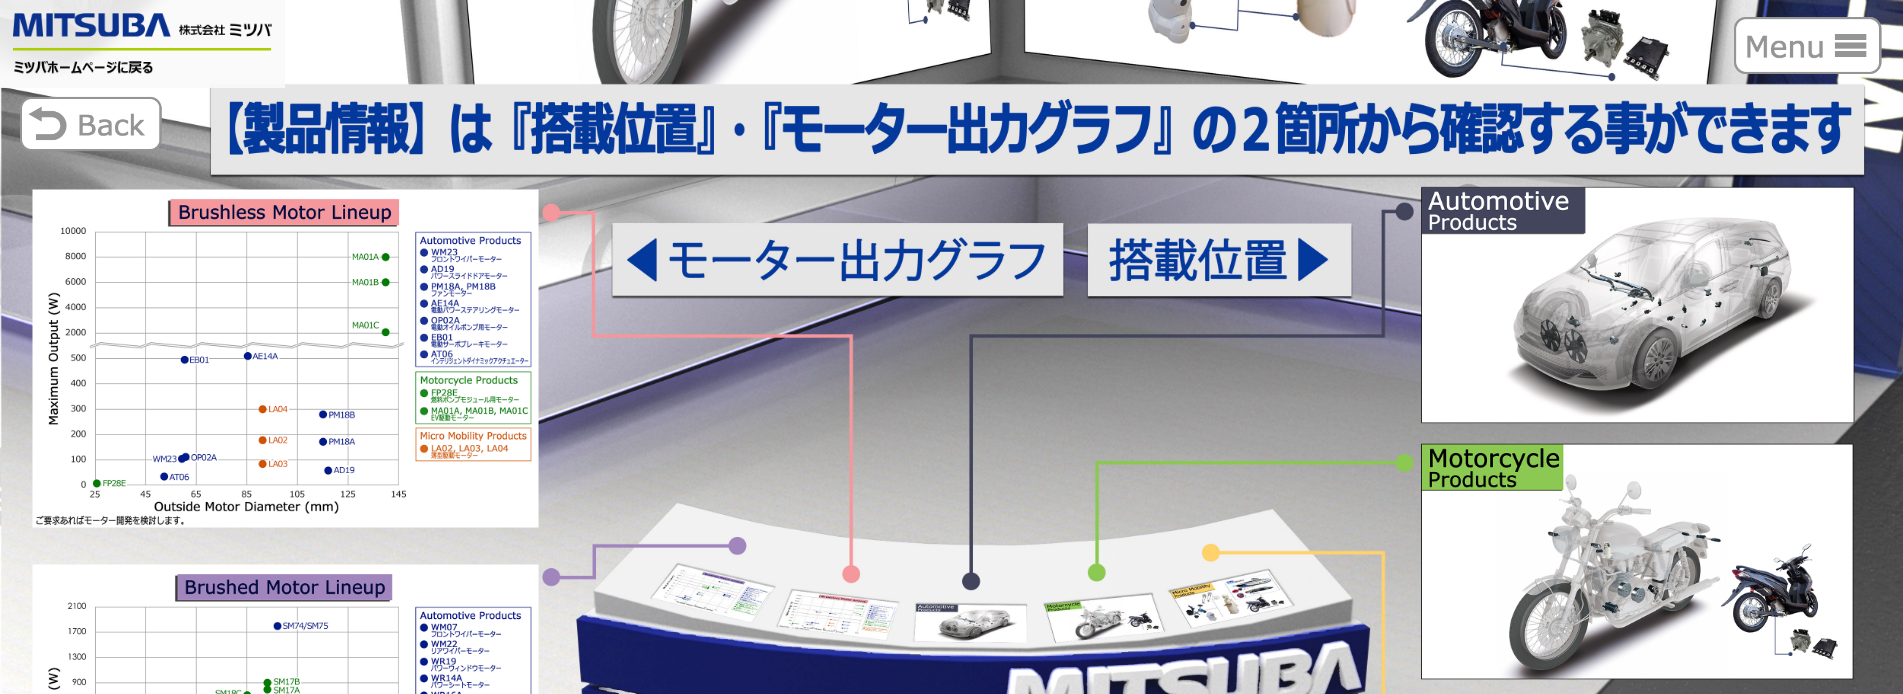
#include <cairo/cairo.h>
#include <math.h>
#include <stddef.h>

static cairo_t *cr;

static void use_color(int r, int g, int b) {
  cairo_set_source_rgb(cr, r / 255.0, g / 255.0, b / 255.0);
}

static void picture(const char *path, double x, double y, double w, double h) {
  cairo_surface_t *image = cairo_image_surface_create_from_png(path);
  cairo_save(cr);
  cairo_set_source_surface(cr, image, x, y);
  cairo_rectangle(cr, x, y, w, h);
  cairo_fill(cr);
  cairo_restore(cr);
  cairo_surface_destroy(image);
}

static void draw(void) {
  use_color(255, 255, 255);
  cairo_paint(cr);
  picture("img_01.png", 0, 0, 1903, 694);
  cairo_set_source_rgba(cr, 0.98, 0.98, 0.98, 0.9);
  cairo_rectangle(cr, 0, 0, 285, 88);
  cairo_fill(cr);
  picture("img_02.png", 13, 13, 259, 61);
  picture("img_03.png", 1734, 17, 148, 57);
  picture("img_04.png", 20, 96, 142, 56);
  picture("img_05.png", 32, 189, 507, 339);
  picture("img_06.png", 1421, 186, 434, 238);
  picture("img_07.png", 32, 564, 507, 130);
  picture("img_08.png", 1421, 443, 433, 237);
}

int main(void) {
  cairo_surface_t *surface = cairo_image_surface_create(CAIRO_FORMAT_RGB24, 1903, 694);
  cr = cairo_create(surface);
  cairo_font_options_t *options = cairo_font_options_create();
  cairo_font_options_set_hint_metrics(options, CAIRO_HINT_METRICS_OFF);
  cairo_font_options_set_hint_style(options, CAIRO_HINT_STYLE_NONE);
  cairo_set_font_options(cr, options);
  cairo_set_miter_limit(cr, 4);
  draw();
  cairo_surface_write_to_png(surface, "out.png");
  cairo_font_options_destroy(options);
  cairo_destroy(cr);
  cairo_surface_destroy(surface);
  return 0;
}
